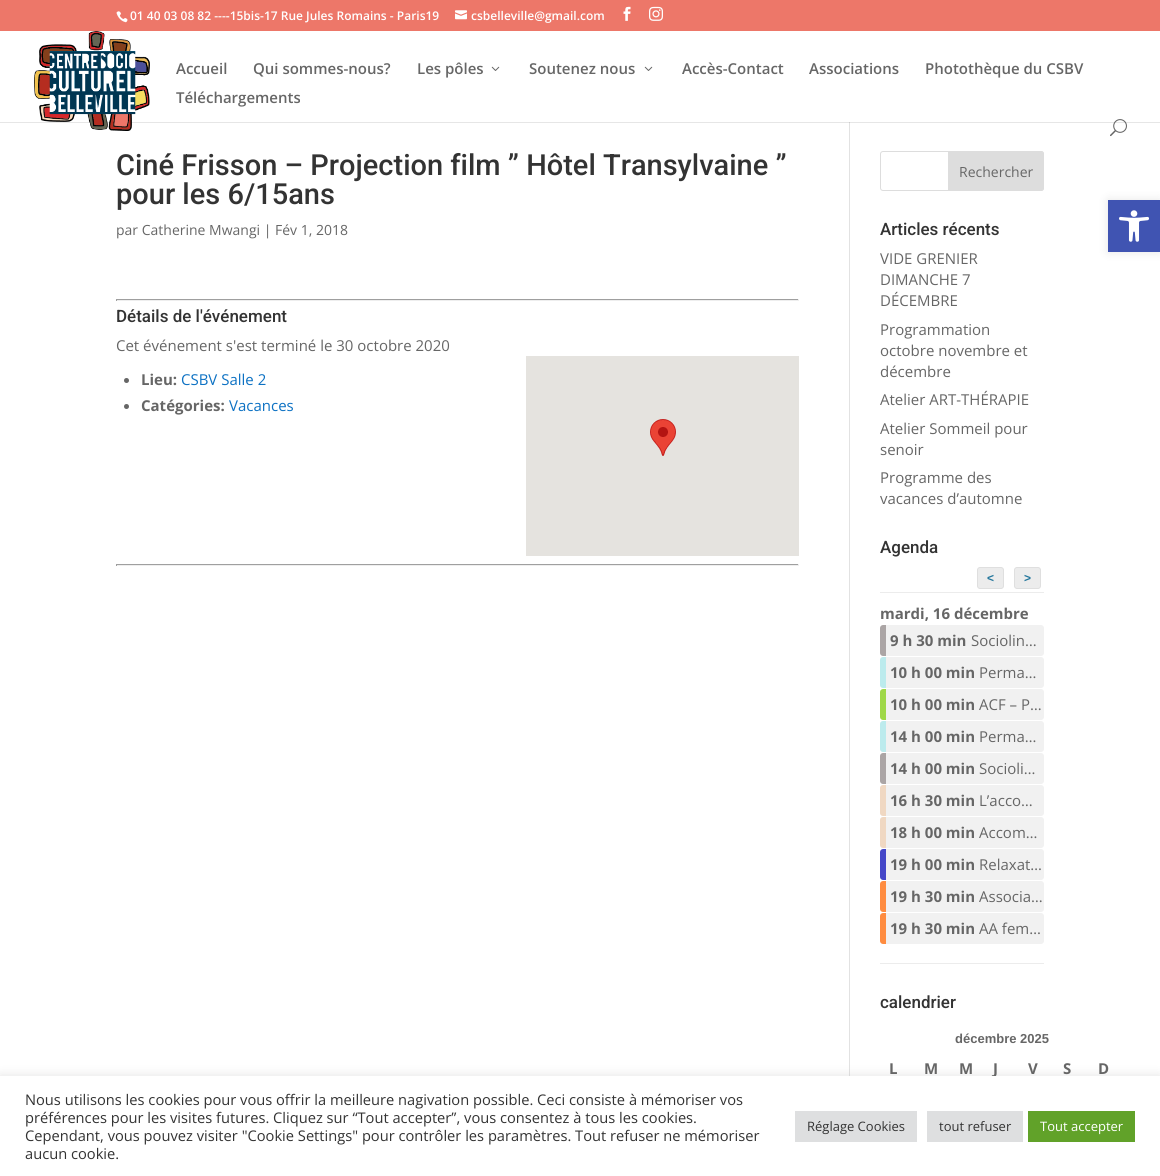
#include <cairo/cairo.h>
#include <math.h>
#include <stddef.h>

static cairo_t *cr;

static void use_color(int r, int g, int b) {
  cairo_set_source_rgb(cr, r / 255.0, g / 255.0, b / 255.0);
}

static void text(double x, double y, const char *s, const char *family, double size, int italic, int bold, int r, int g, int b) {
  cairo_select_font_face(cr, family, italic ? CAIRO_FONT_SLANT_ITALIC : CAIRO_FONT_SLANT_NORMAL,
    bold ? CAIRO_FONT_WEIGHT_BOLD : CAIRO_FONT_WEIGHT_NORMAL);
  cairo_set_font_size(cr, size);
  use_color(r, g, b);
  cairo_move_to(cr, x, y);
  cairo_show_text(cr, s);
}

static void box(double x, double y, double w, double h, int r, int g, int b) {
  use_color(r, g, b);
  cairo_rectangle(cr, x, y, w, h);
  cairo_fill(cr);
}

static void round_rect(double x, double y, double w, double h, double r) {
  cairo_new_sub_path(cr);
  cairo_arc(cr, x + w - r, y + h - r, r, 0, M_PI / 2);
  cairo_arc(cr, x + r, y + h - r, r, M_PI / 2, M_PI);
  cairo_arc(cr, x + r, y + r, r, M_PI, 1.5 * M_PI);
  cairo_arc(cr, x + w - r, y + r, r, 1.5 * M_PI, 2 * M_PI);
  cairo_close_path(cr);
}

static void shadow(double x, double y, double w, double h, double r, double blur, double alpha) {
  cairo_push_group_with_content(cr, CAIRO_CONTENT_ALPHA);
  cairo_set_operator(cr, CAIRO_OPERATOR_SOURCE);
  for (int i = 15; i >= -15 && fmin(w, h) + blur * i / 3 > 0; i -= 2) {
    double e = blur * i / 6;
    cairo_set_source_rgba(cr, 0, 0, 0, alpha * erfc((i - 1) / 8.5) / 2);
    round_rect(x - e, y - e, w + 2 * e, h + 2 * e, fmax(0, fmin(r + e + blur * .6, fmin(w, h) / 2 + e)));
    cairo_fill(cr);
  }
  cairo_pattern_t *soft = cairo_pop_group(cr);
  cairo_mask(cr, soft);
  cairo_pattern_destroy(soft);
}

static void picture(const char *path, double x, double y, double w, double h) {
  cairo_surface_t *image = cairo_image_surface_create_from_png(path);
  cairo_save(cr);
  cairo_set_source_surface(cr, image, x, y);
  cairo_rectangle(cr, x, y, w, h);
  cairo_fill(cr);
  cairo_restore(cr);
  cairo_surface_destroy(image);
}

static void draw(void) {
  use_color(255, 255, 255);
  cairo_paint(cr);
  box(0, 0, 1160, 31, 237, 119, 105);
  picture("img_01.png", 116, 11, 12, 12);
  picture("img_02.png", 455, 10, 12, 10);
  picture("img_03.png", 623, 6, 8, 15);
  picture("img_04.png", 649, 6, 14, 15);
  box(0, 122, 1160, 1, 230, 230, 230);
  picture("img_05.png", 34, 31, 116, 100);
  picture("img_06.png", 491, 66, 9, 5);
  picture("img_06.png", 644, 66, 9, 5);
  picture("img_07.png", 1110, 119, 17, 18);
  box(849, 123, 1, 953, 226, 226, 226);
  box(849, 122, 1, 1, 203, 203, 203);
  box(116, 299, 683, 1, 159, 159, 159);
  box(798, 299, 1, 2, 238, 238, 238);
  box(116, 300, 683, 1, 238, 238, 238);
  box(116, 299, 1, 2, 159, 159, 159);
  use_color(102, 102, 102);
  cairo_arc(cr, 126.5, 380.5, 2.5, 0, 2 * M_PI);
  cairo_fill(cr);
  cairo_arc(cr, 126.5, 406.5, 2.5, 0, 2 * M_PI);
  cairo_fill(cr);
  box(526, 356, 273, 200, 229, 227, 223);
  picture("img_08.png", 650, 419, 26, 37);
  box(116, 564, 683, 1, 159, 159, 159);
  box(798, 564, 1, 2, 238, 238, 238);
  box(116, 565, 683, 1, 238, 238, 238);
  box(116, 564, 1, 2, 159, 159, 159);
  round_rect(880.5, 151.5, 163, 39, 2.5);
  use_color(221, 221, 221);
  cairo_set_line_width(cr, 1);
  cairo_stroke(cr);
  cairo_new_path(cr);
  cairo_move_to(cr, 948.5, 151.5);
  cairo_line_to(cr, 1041, 151.5);
  cairo_curve_to(cr, 1042.5, 151.5, 1043.5, 152.5, 1043.5, 154);
  cairo_line_to(cr, 1043.5, 188);
  cairo_curve_to(cr, 1043.5, 189.5, 1042.5, 190.5, 1041, 190.5);
  cairo_line_to(cr, 948.5, 190.5);
  cairo_close_path(cr);
  cairo_fill_preserve(cr);
  cairo_stroke(cr);
  use_color(236, 236, 236);
  round_rect(977.5, 567.5, 26, 21, 2.5);
  cairo_fill_preserve(cr);
  use_color(223, 223, 223);
  cairo_stroke(cr);
  use_color(236, 236, 236);
  round_rect(1014.5, 567.5, 26, 21, 2.5);
  cairo_fill_preserve(cr);
  use_color(223, 223, 223);
  cairo_stroke(cr);
  box(880, 963, 164, 1, 236, 236, 236);
  box(880, 592, 164, 1, 236, 236, 236);
  use_color(241, 241, 241);
  round_rect(880, 625, 164, 31, 3);
  cairo_fill(cr);
  use_color(171, 165, 165);
  cairo_new_path(cr);
  cairo_move_to(cr, 883, 625);
  cairo_line_to(cr, 886, 625);
  cairo_line_to(cr, 886, 656);
  cairo_line_to(cr, 883, 656);
  cairo_curve_to(cr, 881.5, 656, 880, 654.5, 880, 653);
  cairo_line_to(cr, 880, 628);
  cairo_curve_to(cr, 880, 626.5, 881.5, 625, 883, 625);
  cairo_close_path(cr);
  cairo_fill(cr);
  use_color(241, 241, 241);
  round_rect(880, 657, 164, 31, 3);
  cairo_fill(cr);
  use_color(188, 235, 237);
  cairo_new_path(cr);
  cairo_move_to(cr, 883, 657);
  cairo_line_to(cr, 886, 657);
  cairo_line_to(cr, 886, 688);
  cairo_line_to(cr, 883, 688);
  cairo_curve_to(cr, 881.5, 688, 880, 686.5, 880, 685);
  cairo_line_to(cr, 880, 660);
  cairo_curve_to(cr, 880, 658.5, 881.5, 657, 883, 657);
  cairo_close_path(cr);
  cairo_fill(cr);
  use_color(241, 241, 241);
  round_rect(880, 689, 164, 31, 3);
  cairo_fill(cr);
  use_color(159, 216, 72);
  cairo_new_path(cr);
  cairo_move_to(cr, 883, 689);
  cairo_line_to(cr, 886, 689);
  cairo_line_to(cr, 886, 720);
  cairo_line_to(cr, 883, 720);
  cairo_curve_to(cr, 881.5, 720, 880, 718.5, 880, 717);
  cairo_line_to(cr, 880, 692);
  cairo_curve_to(cr, 880, 690.5, 881.5, 689, 883, 689);
  cairo_close_path(cr);
  cairo_fill(cr);
  use_color(241, 241, 241);
  round_rect(880, 721, 164, 31, 3);
  cairo_fill(cr);
  use_color(188, 235, 237);
  cairo_new_path(cr);
  cairo_move_to(cr, 883, 721);
  cairo_line_to(cr, 886, 721);
  cairo_line_to(cr, 886, 752);
  cairo_line_to(cr, 883, 752);
  cairo_curve_to(cr, 881.5, 752, 880, 750.5, 880, 749);
  cairo_line_to(cr, 880, 724);
  cairo_curve_to(cr, 880, 722.5, 881.5, 721, 883, 721);
  cairo_close_path(cr);
  cairo_fill(cr);
  use_color(241, 241, 241);
  round_rect(880, 753, 164, 31, 3);
  cairo_fill(cr);
  use_color(171, 165, 165);
  cairo_new_path(cr);
  cairo_move_to(cr, 883, 753);
  cairo_line_to(cr, 886, 753);
  cairo_line_to(cr, 886, 784);
  cairo_line_to(cr, 883, 784);
  cairo_curve_to(cr, 881.5, 784, 880, 782.5, 880, 781);
  cairo_line_to(cr, 880, 756);
  cairo_curve_to(cr, 880, 754.5, 881.5, 753, 883, 753);
  cairo_close_path(cr);
  cairo_fill(cr);
  use_color(241, 241, 241);
  round_rect(880, 785, 164, 31, 3);
  cairo_fill(cr);
  use_color(240, 216, 194);
  cairo_new_path(cr);
  cairo_move_to(cr, 883, 785);
  cairo_line_to(cr, 886, 785);
  cairo_line_to(cr, 886, 816);
  cairo_line_to(cr, 883, 816);
  cairo_curve_to(cr, 881.5, 816, 880, 814.5, 880, 813);
  cairo_line_to(cr, 880, 788);
  cairo_curve_to(cr, 880, 786.5, 881.5, 785, 883, 785);
  cairo_close_path(cr);
  cairo_fill(cr);
  use_color(241, 241, 241);
  round_rect(880, 817, 164, 31, 3);
  cairo_fill(cr);
  use_color(240, 216, 194);
  cairo_new_path(cr);
  cairo_move_to(cr, 883, 817);
  cairo_line_to(cr, 886, 817);
  cairo_line_to(cr, 886, 848);
  cairo_line_to(cr, 883, 848);
  cairo_curve_to(cr, 881.5, 848, 880, 846.5, 880, 845);
  cairo_line_to(cr, 880, 820);
  cairo_curve_to(cr, 880, 818.5, 881.5, 817, 883, 817);
  cairo_close_path(cr);
  cairo_fill(cr);
  use_color(241, 241, 241);
  round_rect(880, 849, 164, 31, 3);
  cairo_fill(cr);
  use_color(69, 71, 200);
  cairo_new_path(cr);
  cairo_move_to(cr, 883, 849);
  cairo_line_to(cr, 886, 849);
  cairo_line_to(cr, 886, 880);
  cairo_line_to(cr, 883, 880);
  cairo_curve_to(cr, 881.5, 880, 880, 878.5, 880, 877);
  cairo_line_to(cr, 880, 852);
  cairo_curve_to(cr, 880, 850.5, 881.5, 849, 883, 849);
  cairo_close_path(cr);
  cairo_fill(cr);
  use_color(241, 241, 241);
  round_rect(880, 881, 164, 31, 3);
  cairo_fill(cr);
  use_color(255, 140, 64);
  cairo_new_path(cr);
  cairo_move_to(cr, 883, 881);
  cairo_line_to(cr, 886, 881);
  cairo_line_to(cr, 886, 912);
  cairo_line_to(cr, 883, 912);
  cairo_curve_to(cr, 881.5, 912, 880, 910.5, 880, 909);
  cairo_line_to(cr, 880, 884);
  cairo_curve_to(cr, 880, 882.5, 881.5, 881, 883, 881);
  cairo_close_path(cr);
  cairo_fill(cr);
  use_color(241, 241, 241);
  round_rect(880, 913, 164, 31, 3);
  cairo_fill(cr);
  use_color(255, 140, 64);
  cairo_new_path(cr);
  cairo_move_to(cr, 883, 913);
  cairo_line_to(cr, 886, 913);
  cairo_line_to(cr, 886, 944);
  cairo_line_to(cr, 883, 944);
  cairo_curve_to(cr, 881.5, 944, 880, 942.5, 880, 941);
  cairo_line_to(cr, 880, 916);
  cairo_curve_to(cr, 880, 914.5, 881.5, 913, 883, 913);
  cairo_close_path(cr);
  cairo_fill(cr);
  use_color(0, 0, 0);
  shadow(1108, 200, 52, 52, 0, 5, 0.1);
  box(1108, 200, 52, 52, 64, 84, 178);
  picture("img_09.png", 1119, 210, 30, 32);
  use_color(172, 171, 171);
  shadow(0, 1075, 1160, 100, 0, 5, 0.3);
  text(130, 20, "01 40 03 08 82 ----15bis-17 Rue Jules Romains - Paris19", "Open Sans SemiBold", 12, 0, 0, 255, 255, 255);
  text(471, 20, "csbelleville@gmail.com", "Open Sans SemiBold", 12, 0, 0, 255, 255, 255);
  text(176, 74, "Accueil", "Open Sans SemiBold", 15, 0, 0, 102, 102, 102);
  text(253, 74, "Qui sommes-nous?", "Open Sans SemiBold", 15, 0, 0, 102, 102, 102);
  text(417, 74, "Les pôles", "Open Sans SemiBold", 15, 0, 0, 102, 102, 102);
  text(529, 74, "Soutenez nous", "Open Sans SemiBold", 15, 0, 0, 102, 102, 102);
  text(682, 74, "Accès-Contact", "Open Sans SemiBold", 15, 0, 0, 102, 102, 102);
  text(809, 74, "Associations", "Open Sans SemiBold", 15, 0, 0, 102, 102, 102);
  text(925, 74, "Photothèque du CSBV", "Open Sans SemiBold", 15, 0, 0, 102, 102, 102);
  text(176, 103, "Téléchargements", "Open Sans SemiBold", 15, 0, 0, 102, 102, 102);
  text(116, 175, "Ciné Frisson – Projection film ” Hôtel Transylvaine ”", "Roboto Medium", 29, 0, 0, 51, 51, 51);
  text(116, 204, "pour les 6/15ans", "Roboto Medium", 29, 0, 0, 51, 51, 51);
  text(116, 235, "par Catherine Mwangi | Fév 1, 2018", "Open Sans", 14, 0, 0, 102, 102, 102);
  text(116, 322, "Détails de l'événement", "Roboto Medium", 17, 0, 0, 51, 51, 51);
  text(116, 351, "Cet événement s'est terminé le 30 octobre 2020", "Open Sans", 15, 0, 0, 102, 102, 102);
  text(141, 385, "Lieu:", "Open Sans", 15, 0, 1, 102, 102, 102);
  text(181, 385, "CSBV Salle 2", "Open Sans", 15, 0, 0, 12, 113, 195);
  text(141, 411, "Catégories:", "Open Sans", 15, 0, 1, 102, 102, 102);
  text(229, 411, "Vacances", "Open Sans", 15, 0, 0, 12, 113, 195);
  text(959, 177, "Rechercher", "Open Sans", 14, 0, 0, 102, 102, 102);
  text(880, 235, "Articles récents", "Roboto Medium", 17, 0, 0, 51, 51, 51);
  text(880, 264, "VIDE GRENIER", "Open Sans", 15, 0, 0, 102, 102, 102);
  text(880, 285, "DIMANCHE 7", "Open Sans", 15, 0, 0, 102, 102, 102);
  text(880, 306, "DÉCEMBRE", "Open Sans", 15, 0, 0, 102, 102, 102);
  text(880, 335, "Programmation", "Open Sans", 15, 0, 0, 102, 102, 102);
  text(880, 356, "octobre novembre et", "Open Sans", 15, 0, 0, 102, 102, 102);
  text(880, 377, "décembre", "Open Sans", 15, 0, 0, 102, 102, 102);
  text(880, 405, "Atelier ART-THÉRAPIE", "Open Sans", 15, 0, 0, 102, 102, 102);
  text(880, 434, "Atelier Sommeil pour", "Open Sans", 15, 0, 0, 102, 102, 102);
  text(880, 455, "senoir", "Open Sans", 15, 0, 0, 102, 102, 102);
  text(880, 483, "Programme des", "Open Sans", 15, 0, 0, 102, 102, 102);
  text(880, 504, "vacances d’automne", "Open Sans", 15, 0, 0, 102, 102, 102);
  text(880, 553, "Agenda", "Roboto Medium", 17, 0, 0, 51, 51, 51);
  text(987, 582, "<", "Liberation Sans", 12, 0, 1, 33, 117, 155);
  text(1024, 582, ">", "Liberation Sans", 12, 0, 1, 33, 117, 155);
  text(880, 619, "mardi, 16 décembre", "Open Sans", 15, 0, 1, 102, 102, 102);
  text(890, 646, "9 h 30 min", "Open Sans", 15, 0, 1, 102, 102, 102);
  text(971, 646, "Sociolin…", "Open Sans", 15, 0, 0, 102, 102, 102);
  text(890, 678, "10 h 00 min", "Open Sans", 15, 0, 1, 102, 102, 102);
  text(979, 678, "Perma…", "Open Sans", 15, 0, 0, 102, 102, 102);
  text(890, 710, "10 h 00 min", "Open Sans", 15, 0, 1, 102, 102, 102);
  text(979, 710, "ACF – P…", "Open Sans", 15, 0, 0, 102, 102, 102);
  text(890, 742, "14 h 00 min", "Open Sans", 15, 0, 1, 102, 102, 102);
  text(979, 742, "Perma…", "Open Sans", 15, 0, 0, 102, 102, 102);
  text(890, 774, "14 h 00 min", "Open Sans", 15, 0, 1, 102, 102, 102);
  text(979, 774, "Socioli…", "Open Sans", 15, 0, 0, 102, 102, 102);
  text(890, 806, "16 h 30 min", "Open Sans", 15, 0, 1, 102, 102, 102);
  text(979, 806, "L’acco…", "Open Sans", 15, 0, 0, 102, 102, 102);
  text(890, 838, "18 h 00 min", "Open Sans", 15, 0, 1, 102, 102, 102);
  text(979, 838, "Accom…", "Open Sans", 15, 0, 0, 102, 102, 102);
  text(890, 870, "19 h 00 min", "Open Sans", 15, 0, 1, 102, 102, 102);
  text(979, 870, "Relaxat…", "Open Sans", 15, 0, 0, 102, 102, 102);
  text(890, 902, "19 h 30 min", "Open Sans", 15, 0, 1, 102, 102, 102);
  text(979, 902, "Associa…", "Open Sans", 15, 0, 0, 102, 102, 102);
  text(890, 934, "19 h 30 min", "Open Sans", 15, 0, 1, 102, 102, 102);
  text(979, 934, "AA fem…", "Open Sans", 15, 0, 0, 102, 102, 102);
  text(880, 1008, "calendrier", "Roboto Medium", 17, 0, 0, 51, 51, 51);
  text(955, 1043, "décembre 2025", "Liberation Sans", 13, 0, 1, 102, 102, 102);
  text(889, 1074, "L", "Open Sans", 15, 0, 1, 102, 102, 102);
  text(924, 1074, "M", "Open Sans", 15, 0, 1, 102, 102, 102);
  text(959, 1074, "M", "Open Sans", 15, 0, 1, 102, 102, 102);
  text(993, 1074, "J", "Open Sans", 15, 0, 1, 102, 102, 102);
  text(1028, 1074, "V", "Open Sans", 15, 0, 1, 102, 102, 102);
  text(1063, 1074, "S", "Open Sans", 15, 0, 1, 102, 102, 102);
  text(1098, 1074, "D", "Open Sans", 15, 0, 1, 102, 102, 102);
  box(0, 1076, 1160, 100, 255, 255, 255);
  text(25, 1105, "Nous utilisons les cookies pour vous offrir la meilleure nagivation possible. Ceci consiste à mémoriser vos", "Open Sans", 14.67, 0, 0, 51, 51, 51);
  text(25, 1123, "préférences pour les visites futures. Cliquez sur “Tout accepter”, vous consentez à tous les cookies.", "Open Sans", 14.67, 0, 0, 51, 51, 51);
  text(25, 1141, "Cependant, vous pouvez visiter \"Cookie Settings\" pour contrôler les paramètres. Tout refuser ne mémoriser", "Open Sans", 14.67, 0, 0, 51, 51, 51);
  text(25, 1159, "aucun cookie.", "Open Sans", 14.67, 0, 0, 51, 51, 51);
  box(795, 1111, 122, 31, 222, 223, 224);
  text(807, 1131, "Réglage Cookies", "Open Sans", 13, 0, 0, 51, 51, 51);
  box(927, 1111, 96, 31, 222, 223, 224);
  text(939, 1131, "tout refuser", "Open Sans", 13, 0, 0, 51, 51, 51);
  box(1028, 1111, 107, 31, 97, 162, 41);
  text(1040, 1131, "Tout accepter", "Open Sans", 13, 0, 0, 255, 255, 255);
}

int main(void) {
  cairo_surface_t *surface = cairo_image_surface_create(CAIRO_FORMAT_RGB24, 1160, 1176);
  cr = cairo_create(surface);
  cairo_font_options_t *options = cairo_font_options_create();
  cairo_font_options_set_hint_metrics(options, CAIRO_HINT_METRICS_OFF);
  cairo_font_options_set_hint_style(options, CAIRO_HINT_STYLE_NONE);
  cairo_set_font_options(cr, options);
  cairo_set_miter_limit(cr, 4);
  draw();
  cairo_surface_write_to_png(surface, "out.png");
  cairo_font_options_destroy(options);
  cairo_destroy(cr);
  cairo_surface_destroy(surface);
  return 0;
}
